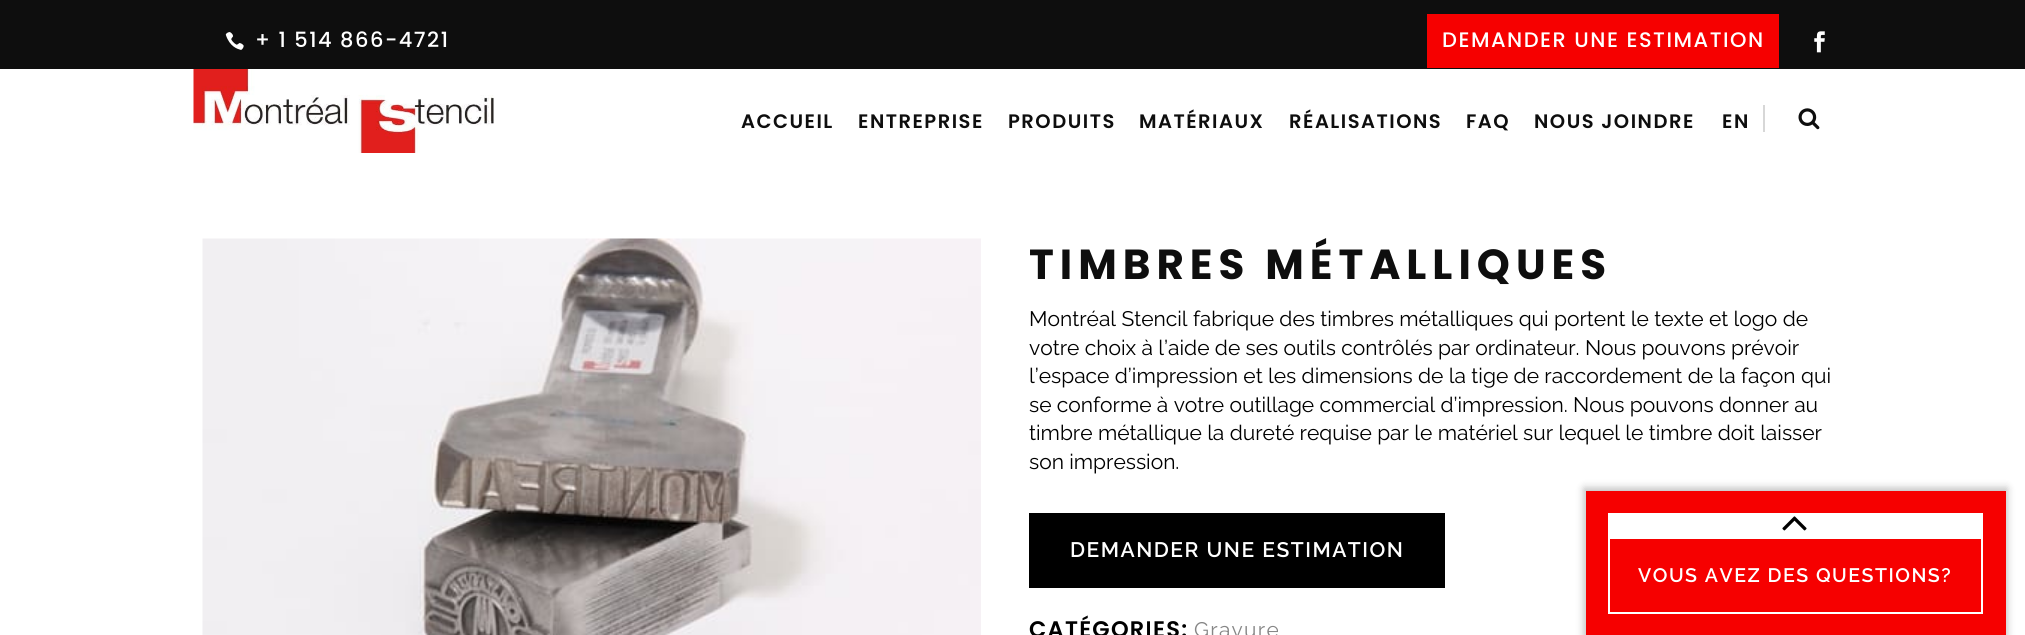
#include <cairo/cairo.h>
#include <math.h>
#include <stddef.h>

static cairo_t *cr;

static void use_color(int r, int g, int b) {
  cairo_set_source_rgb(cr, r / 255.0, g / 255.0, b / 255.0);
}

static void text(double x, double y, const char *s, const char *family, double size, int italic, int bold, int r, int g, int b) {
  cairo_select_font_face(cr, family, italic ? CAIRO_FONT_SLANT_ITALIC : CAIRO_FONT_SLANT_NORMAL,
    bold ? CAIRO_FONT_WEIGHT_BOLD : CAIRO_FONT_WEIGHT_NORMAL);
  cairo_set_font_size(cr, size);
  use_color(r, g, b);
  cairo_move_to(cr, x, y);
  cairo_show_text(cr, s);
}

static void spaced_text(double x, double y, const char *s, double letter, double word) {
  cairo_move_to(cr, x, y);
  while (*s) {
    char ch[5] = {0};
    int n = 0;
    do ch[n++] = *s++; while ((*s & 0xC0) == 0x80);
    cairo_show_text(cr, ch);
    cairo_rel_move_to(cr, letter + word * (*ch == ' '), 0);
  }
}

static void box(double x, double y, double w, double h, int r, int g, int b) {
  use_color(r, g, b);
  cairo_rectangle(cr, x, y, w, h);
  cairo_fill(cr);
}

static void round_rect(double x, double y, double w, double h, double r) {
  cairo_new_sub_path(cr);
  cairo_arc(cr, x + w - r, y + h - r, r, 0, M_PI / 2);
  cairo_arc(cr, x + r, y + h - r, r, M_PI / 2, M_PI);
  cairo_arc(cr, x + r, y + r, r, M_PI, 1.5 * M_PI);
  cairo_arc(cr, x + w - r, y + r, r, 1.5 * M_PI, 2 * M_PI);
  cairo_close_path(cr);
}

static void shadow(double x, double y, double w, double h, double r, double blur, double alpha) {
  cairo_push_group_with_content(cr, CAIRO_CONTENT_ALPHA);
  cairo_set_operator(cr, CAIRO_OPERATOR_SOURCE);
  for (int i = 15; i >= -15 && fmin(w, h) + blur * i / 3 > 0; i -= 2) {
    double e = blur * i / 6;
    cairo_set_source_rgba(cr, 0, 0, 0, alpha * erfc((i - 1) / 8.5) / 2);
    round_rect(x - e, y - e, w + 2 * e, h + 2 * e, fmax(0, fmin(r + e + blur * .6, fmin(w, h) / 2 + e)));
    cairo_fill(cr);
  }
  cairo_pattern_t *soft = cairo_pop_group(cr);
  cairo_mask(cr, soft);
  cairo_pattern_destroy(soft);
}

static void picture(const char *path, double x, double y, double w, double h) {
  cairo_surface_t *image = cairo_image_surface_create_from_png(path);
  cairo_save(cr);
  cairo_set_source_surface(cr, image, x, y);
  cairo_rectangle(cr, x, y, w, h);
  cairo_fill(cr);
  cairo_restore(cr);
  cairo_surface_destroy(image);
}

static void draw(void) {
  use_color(255, 255, 255);
  cairo_paint(cr);
  box(0, 0, 2025, 69, 14, 14, 14);
  picture("img_01.png", 225, 32, 19, 18);
  box(1427, 14, 352, 54, 246, 0, 0);
  picture("img_02.png", 1814, 31, 11, 22);
  picture("img_03.png", 193, 69, 301, 84);
  box(1763, 105, 2, 27, 215, 215, 215);
  picture("img_04.png", 1798, 108, 22, 22);
  picture("img_05.png", 202, 238, 779, 397);
  box(1029, 513, 416, 75, 0, 0, 0);
  use_color(0, 0, 0);
  shadow(1584, 488, 423, 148, 0, 4, 0.26);
  box(1586, 491, 420, 144, 246, 0, 0);
  box(1608, 513, 375, 24, 255, 255, 255);
  picture("img_06.png", 1782, 516, 25, 15);
  cairo_rectangle(cr, 1609, 538, 373, 75);
  cairo_stroke(cr);
  cairo_select_font_face(cr, "Poppins Medium", CAIRO_FONT_SLANT_NORMAL, CAIRO_FONT_WEIGHT_NORMAL);
  cairo_set_font_size(cr, 21);
  spaced_text(255, 47, "+ 1 514 866-4721", 1.5, 0);
  spaced_text(1442, 47, "DEMANDER UNE ESTIMATION", 1.5, 0);
  cairo_select_font_face(cr, "Poppins SemiBold", CAIRO_FONT_SLANT_NORMAL, CAIRO_FONT_WEIGHT_NORMAL);
  cairo_set_font_size(cr, 19.5);
  use_color(14, 14, 14);
  spaced_text(741, 128, "ACCUEIL", 1.5, 0);
  spaced_text(858, 128, "ENTREPRISE", 1.5, 0);
  spaced_text(1008, 128, "PRODUITS", 1.5, 0);
  spaced_text(1139, 128, "MATÉRIAUX", 1.5, 0);
  spaced_text(1289, 128, "RÉALISATIONS", 1.5, 0);
  spaced_text(1466, 128, "FAQ", 1.5, 0);
  spaced_text(1534, 128, "NOUS JOINDRE", 1.5, 0);
  spaced_text(1722, 128, "EN", 1.5, 0);
  cairo_select_font_face(cr, "Poppins", CAIRO_FONT_SLANT_NORMAL, CAIRO_FONT_WEIGHT_BOLD);
  cairo_set_font_size(cr, 42);
  spaced_text(1029, 279, "TIMBRES MÉTALLIQUES", 6, 0);
  text(1029, 326, "Montréal Stencil fabrique des timbres métalliques qui portent le texte et logo de", "Raleway", 21, 0, 0, 0, 0, 0);
  text(1029, 355, "votre choix à l’aide de ses outils contrôlés par ordinateur. Nous pouvons prévoir", "Raleway", 21, 0, 0, 0, 0, 0);
  text(1029, 383, "l’espace d’impression et les dimensions de la tige de raccordement de la façon qui", "Raleway", 21, 0, 0, 0, 0, 0);
  text(1029, 412, "se conforme à votre outillage commercial d’impression. Nous pouvons donner au", "Raleway", 21, 0, 0, 0, 0, 0);
  text(1029, 440, "timbre métallique la dureté requise par le matériel sur lequel le timbre doit laisser", "Raleway", 21, 0, 0, 0, 0, 0);
  text(1029, 469, "son impression.", "Raleway", 21, 0, 0, 0, 0, 0);
  cairo_select_font_face(cr, "Raleway SemiBold", CAIRO_FONT_SLANT_NORMAL, CAIRO_FONT_WEIGHT_NORMAL);
  use_color(255, 255, 255);
  spaced_text(1070, 557, "DEMANDER UNE ESTIMATION", 1.5, 0);
  cairo_select_font_face(cr, "Poppins SemiBold", CAIRO_FONT_SLANT_NORMAL, CAIRO_FONT_WEIGHT_NORMAL);
  cairo_set_font_size(cr, 22.5);
  use_color(0, 0, 0);
  spaced_text(1029, 637, "CATÉGORIES:", 1.25, 0);
  cairo_select_font_face(cr, "Raleway", CAIRO_FONT_SLANT_NORMAL, CAIRO_FONT_WEIGHT_NORMAL);
  cairo_set_font_size(cr, 21);
  use_color(134, 134, 134);
  spaced_text(1194, 637, "Gravure", 1.25, 0);
  cairo_select_font_face(cr, "Raleway SemiBold", CAIRO_FONT_SLANT_NORMAL, CAIRO_FONT_WEIGHT_NORMAL);
  cairo_set_font_size(cr, 19.5);
  use_color(255, 255, 255);
  spaced_text(1638, 582, "VOUS AVEZ DES QUESTIONS?", 1.5, 0);
}

int main(void) {
  cairo_surface_t *surface = cairo_image_surface_create(CAIRO_FORMAT_RGB24, 2025, 635);
  cr = cairo_create(surface);
  cairo_font_options_t *options = cairo_font_options_create();
  cairo_font_options_set_hint_metrics(options, CAIRO_HINT_METRICS_OFF);
  cairo_font_options_set_hint_style(options, CAIRO_HINT_STYLE_NONE);
  cairo_set_font_options(cr, options);
  cairo_set_miter_limit(cr, 4);
  draw();
  cairo_surface_write_to_png(surface, "out.png");
  cairo_font_options_destroy(options);
  cairo_destroy(cr);
  cairo_surface_destroy(surface);
  return 0;
}
